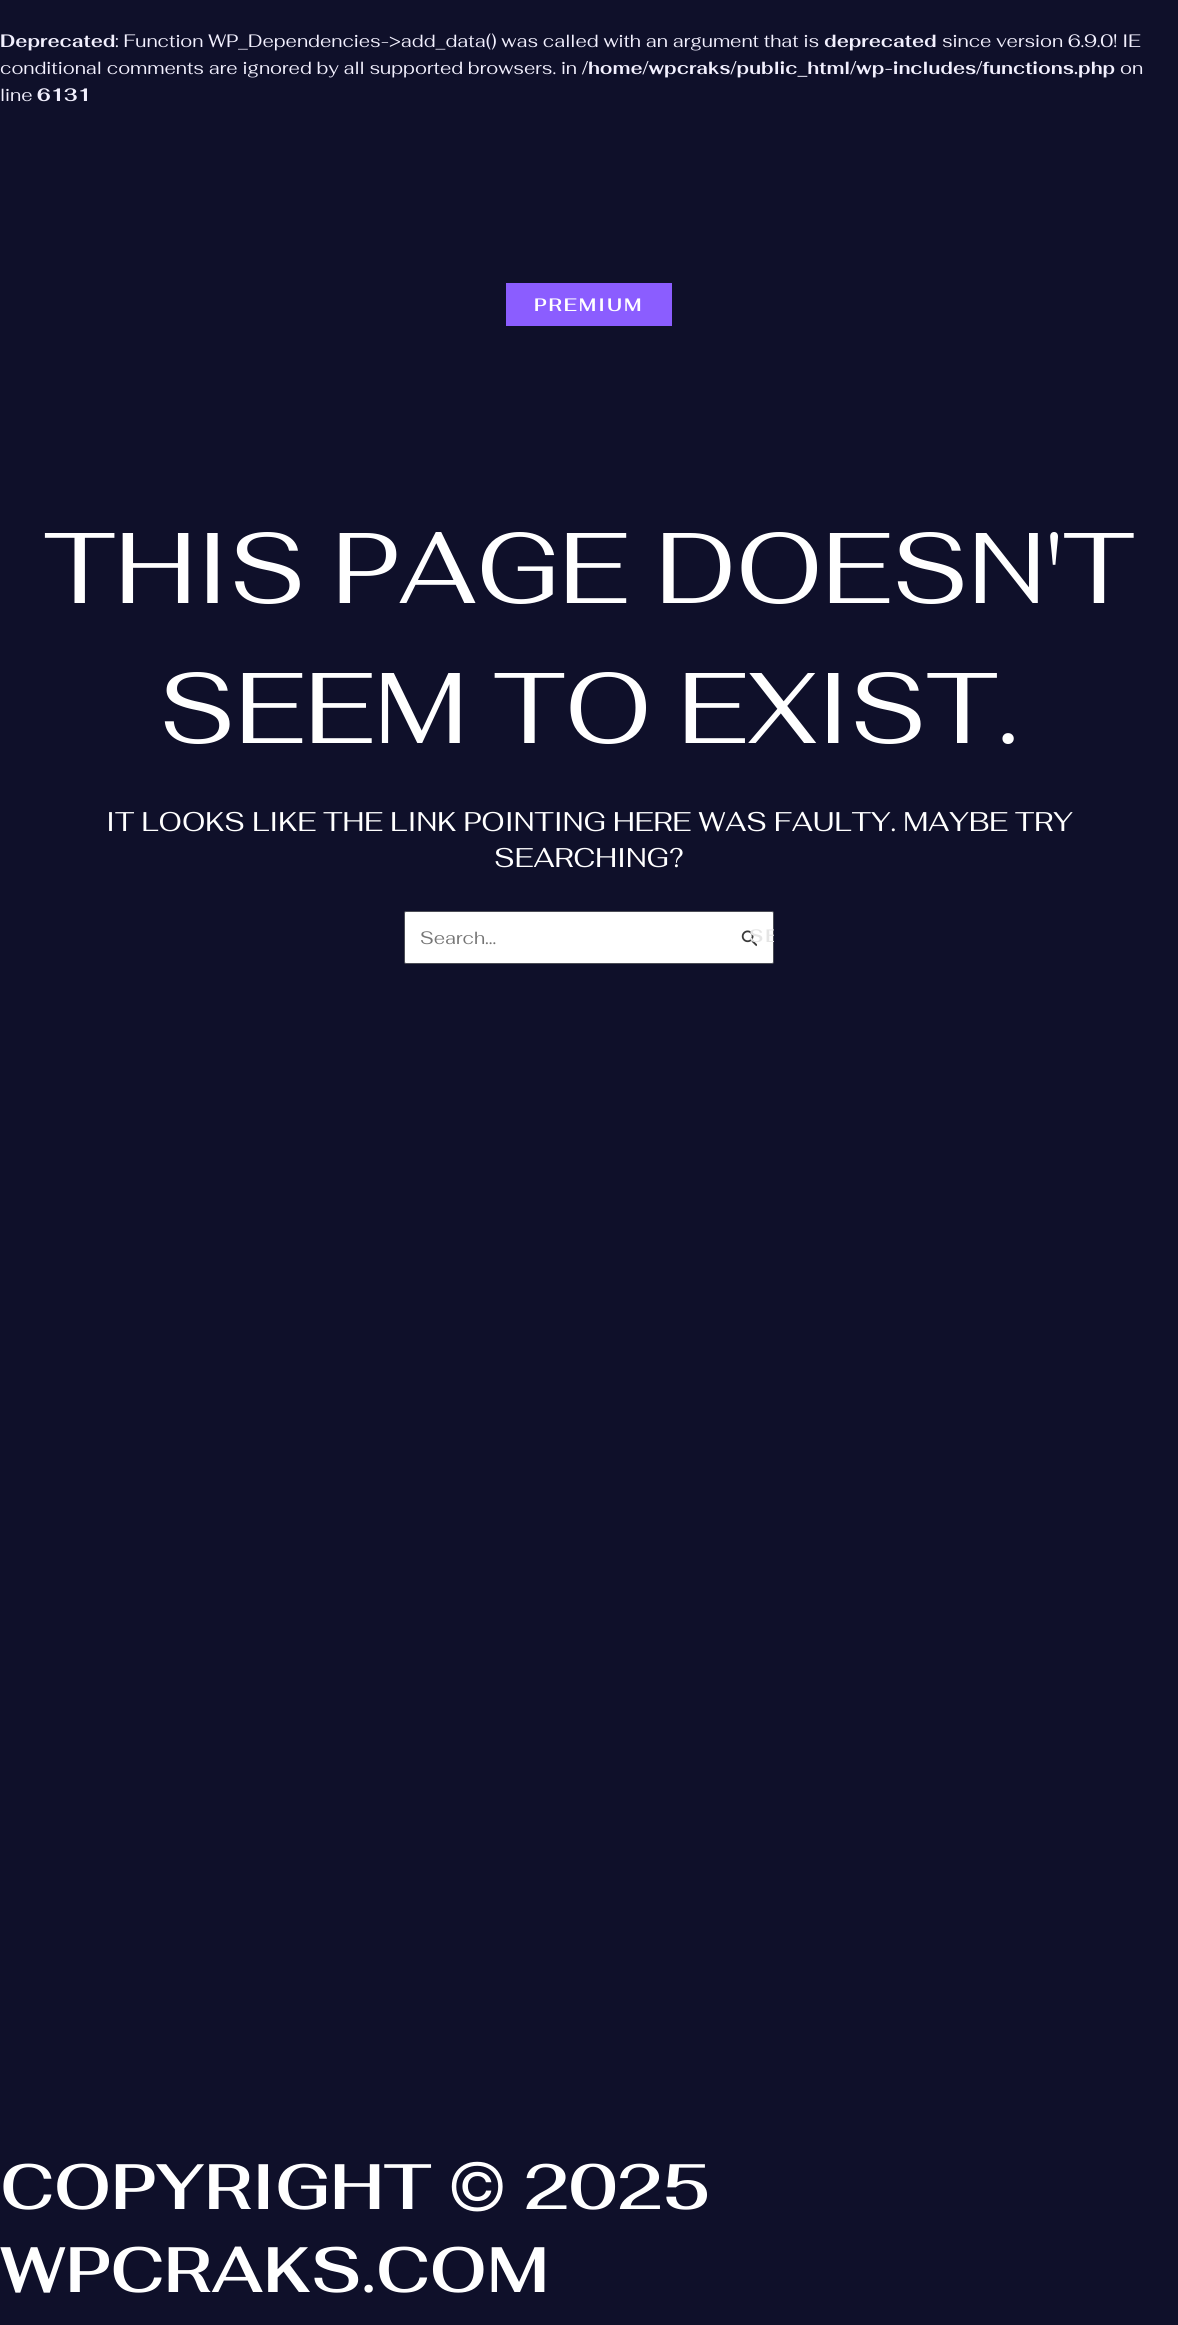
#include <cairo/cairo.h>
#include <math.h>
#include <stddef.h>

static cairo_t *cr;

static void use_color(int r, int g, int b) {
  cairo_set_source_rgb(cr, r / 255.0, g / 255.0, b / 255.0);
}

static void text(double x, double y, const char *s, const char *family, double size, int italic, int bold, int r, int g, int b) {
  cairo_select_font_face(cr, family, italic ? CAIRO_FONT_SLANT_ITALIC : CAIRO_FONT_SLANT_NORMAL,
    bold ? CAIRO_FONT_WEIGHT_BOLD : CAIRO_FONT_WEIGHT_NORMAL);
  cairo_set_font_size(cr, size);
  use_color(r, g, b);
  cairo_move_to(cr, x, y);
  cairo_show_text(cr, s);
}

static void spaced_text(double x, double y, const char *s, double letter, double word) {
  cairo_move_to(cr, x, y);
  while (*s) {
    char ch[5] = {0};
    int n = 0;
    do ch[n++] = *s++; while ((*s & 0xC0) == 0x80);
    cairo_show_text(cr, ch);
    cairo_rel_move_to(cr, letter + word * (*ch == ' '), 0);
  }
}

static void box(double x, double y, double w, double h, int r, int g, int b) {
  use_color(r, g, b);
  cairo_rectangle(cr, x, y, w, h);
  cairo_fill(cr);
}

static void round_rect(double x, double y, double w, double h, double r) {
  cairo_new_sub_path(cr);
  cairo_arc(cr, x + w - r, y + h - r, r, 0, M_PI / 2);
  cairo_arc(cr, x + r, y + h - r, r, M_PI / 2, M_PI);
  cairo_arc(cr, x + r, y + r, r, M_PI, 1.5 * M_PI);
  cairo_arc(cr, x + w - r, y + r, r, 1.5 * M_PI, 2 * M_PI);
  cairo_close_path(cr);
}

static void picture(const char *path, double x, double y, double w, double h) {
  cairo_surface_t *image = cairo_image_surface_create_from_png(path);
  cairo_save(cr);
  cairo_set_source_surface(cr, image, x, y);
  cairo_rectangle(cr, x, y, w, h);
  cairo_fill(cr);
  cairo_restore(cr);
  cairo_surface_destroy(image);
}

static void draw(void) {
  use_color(15, 16, 42);
  cairo_paint(cr);
  box(506, 283, 166, 43, 139, 93, 255);
  use_color(255, 255, 255);
  round_rect(404.5, 911.5, 369, 52, 1.5);
  cairo_fill_preserve(cr);
  use_color(75, 77, 86);
  cairo_set_line_width(cr, 1);
  cairo_stroke(cr);
  picture("img_01.png", 741, 930, 16, 17);
  text(0, 47, "Deprecated", "Fahkwang", 18, 0, 1, 242, 240, 254);
  text(115, 47, ": Function WP_Dependencies->add_data() was called with an argument that is", "Fahkwang", 18, 0, 0, 242, 240, 254);
  text(824, 47, "deprecated", "Fahkwang", 18, 0, 1, 242, 240, 254);
  text(942, 47, "since version 6.9.0! IE", "Fahkwang", 18, 0, 0, 242, 240, 254);
  text(0, 74, "conditional comments are ignored by all supported browsers. in", "Fahkwang", 18, 0, 0, 242, 240, 254);
  text(582, 74, "/home/wpcraks/public_html/wp-includes/functions.php", "Fahkwang", 18, 0, 1, 242, 240, 254);
  text(1120, 74, "on", "Fahkwang", 18, 0, 0, 242, 240, 254);
  text(0, 101, "line", "Fahkwang", 18, 0, 0, 242, 240, 254);
  text(37, 101, "6131", "Fahkwang", 18, 0, 1, 242, 240, 254);
  cairo_select_font_face(cr, "Fahkwang SemiBold", CAIRO_FONT_SLANT_NORMAL, CAIRO_FONT_WEIGHT_NORMAL);
  use_color(255, 255, 255);
  spaced_text(534, 311, "PREMIUM", 2, 0);
  text(44, 603, "THIS PAGE DOESN'T", "Fahkwang", 100, 0, 0, 255, 255, 255);
  text(159, 743, "SEEM TO EXIST.", "Fahkwang", 100, 0, 0, 255, 255, 255);
  text(106, 831, "IT LOOKS LIKE THE LINK POINTING HERE WAS FAULTY. MAYBE TRY", "Fahkwang", 27, 0, 0, 255, 255, 255);
  text(494, 867, "SEARCHING?", "Fahkwang", 27, 0, 0, 255, 255, 255);
  text(420, 944, "Search...", "Fahkwang", 18, 0, 0, 117, 117, 117);
  cairo_save(cr);
  round_rect(729, 911, 45, 49, 2);
  cairo_clip(cr);
  cairo_select_font_face(cr, "Fahkwang SemiBold", CAIRO_FONT_SLANT_NORMAL, CAIRO_FONT_WEIGHT_NORMAL);
  use_color(229, 229, 229);
  spaced_text(749, 942, "SE", 2, 0);
  cairo_restore(cr);
  text(0, 2209, "COPYRIGHT © 2025", "Fahkwang SemiBold", 64, 0, 0, 255, 255, 255);
  text(0, 2292, "WPCRAKS.COM", "Fahkwang SemiBold", 64, 0, 0, 255, 255, 255);
}

int main(void) {
  cairo_surface_t *surface = cairo_image_surface_create(CAIRO_FORMAT_RGB24, 1178, 2325);
  cr = cairo_create(surface);
  cairo_font_options_t *options = cairo_font_options_create();
  cairo_font_options_set_hint_metrics(options, CAIRO_HINT_METRICS_OFF);
  cairo_font_options_set_hint_style(options, CAIRO_HINT_STYLE_NONE);
  cairo_set_font_options(cr, options);
  cairo_set_miter_limit(cr, 4);
  draw();
  cairo_surface_write_to_png(surface, "out.png");
  cairo_font_options_destroy(options);
  cairo_destroy(cr);
  cairo_surface_destroy(surface);
  return 0;
}
